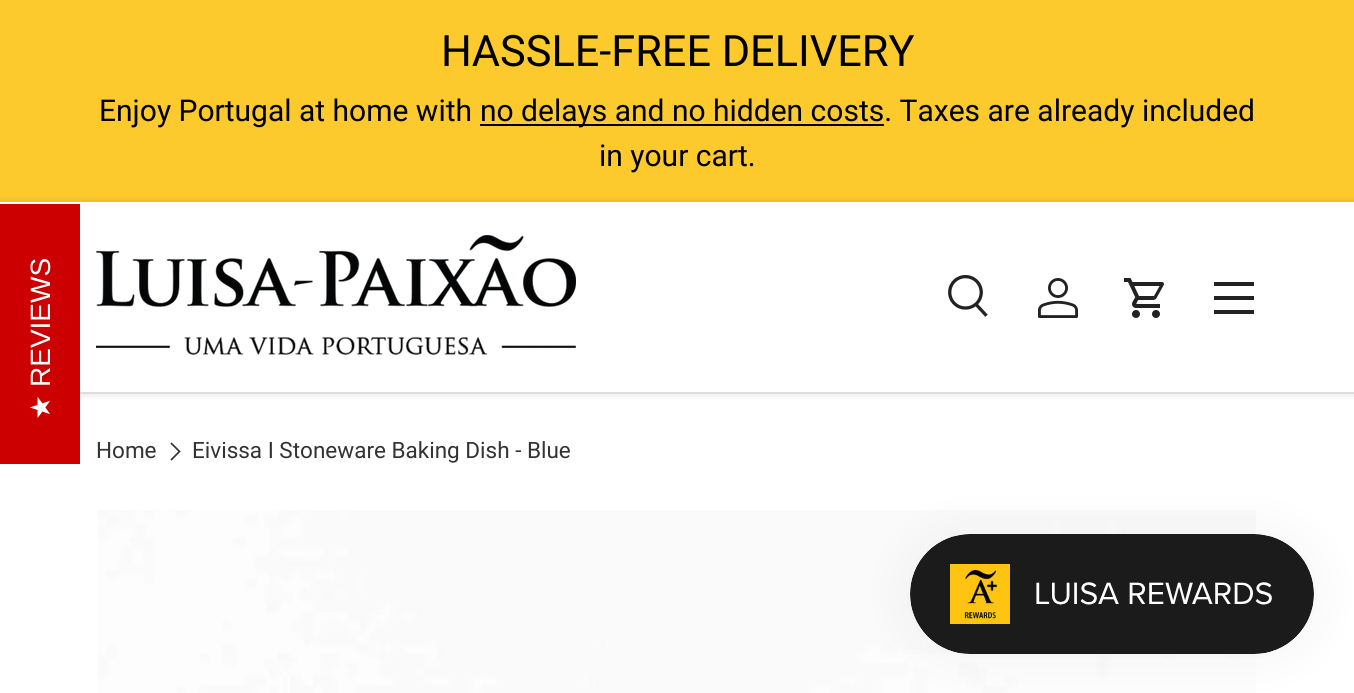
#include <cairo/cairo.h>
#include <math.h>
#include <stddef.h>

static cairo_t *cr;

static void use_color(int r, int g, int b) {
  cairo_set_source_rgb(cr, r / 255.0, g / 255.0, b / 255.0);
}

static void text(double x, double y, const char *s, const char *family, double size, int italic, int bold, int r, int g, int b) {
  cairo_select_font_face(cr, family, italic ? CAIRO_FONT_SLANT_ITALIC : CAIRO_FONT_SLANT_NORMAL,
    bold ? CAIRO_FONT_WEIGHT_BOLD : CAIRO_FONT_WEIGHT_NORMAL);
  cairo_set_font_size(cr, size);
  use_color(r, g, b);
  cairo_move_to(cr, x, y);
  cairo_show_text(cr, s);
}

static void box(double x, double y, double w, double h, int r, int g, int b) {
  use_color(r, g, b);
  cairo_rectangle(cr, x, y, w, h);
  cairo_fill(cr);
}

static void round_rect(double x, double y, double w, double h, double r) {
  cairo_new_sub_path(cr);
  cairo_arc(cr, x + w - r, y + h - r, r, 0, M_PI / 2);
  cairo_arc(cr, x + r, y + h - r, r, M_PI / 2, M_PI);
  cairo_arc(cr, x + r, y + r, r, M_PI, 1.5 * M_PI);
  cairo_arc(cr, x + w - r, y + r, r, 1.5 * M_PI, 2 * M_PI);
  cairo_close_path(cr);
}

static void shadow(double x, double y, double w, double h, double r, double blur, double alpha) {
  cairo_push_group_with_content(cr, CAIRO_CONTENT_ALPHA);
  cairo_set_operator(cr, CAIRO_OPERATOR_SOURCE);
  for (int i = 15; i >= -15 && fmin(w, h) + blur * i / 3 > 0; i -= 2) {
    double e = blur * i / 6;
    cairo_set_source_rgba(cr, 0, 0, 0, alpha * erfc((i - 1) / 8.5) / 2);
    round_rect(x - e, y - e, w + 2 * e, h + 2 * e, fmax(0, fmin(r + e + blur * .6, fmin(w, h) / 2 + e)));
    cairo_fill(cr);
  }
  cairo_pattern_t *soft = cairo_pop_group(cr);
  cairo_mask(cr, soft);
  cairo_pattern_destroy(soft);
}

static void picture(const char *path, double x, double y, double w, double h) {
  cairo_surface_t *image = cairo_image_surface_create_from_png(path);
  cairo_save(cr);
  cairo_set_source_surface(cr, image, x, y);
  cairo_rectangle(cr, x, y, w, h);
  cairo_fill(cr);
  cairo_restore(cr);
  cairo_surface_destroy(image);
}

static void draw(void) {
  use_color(255, 255, 255);
  cairo_paint(cr);
  box(0, 0, 1354, 202, 252, 202, 44);
  box(480, 124, 404, 2, 0, 0, 0);
  cairo_save(cr);
  cairo_set_fill_rule(cr, CAIRO_FILL_RULE_EVEN_ODD);
  cairo_new_path(cr);
  cairo_move_to(cr, 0, 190);
  cairo_line_to(cr, 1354, 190);
  cairo_line_to(cr, 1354, 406);
  cairo_line_to(cr, 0, 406);
  cairo_close_path(cr);
  cairo_move_to(cr, 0, 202);
  cairo_line_to(cr, 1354, 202);
  cairo_line_to(cr, 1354, 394);
  cairo_line_to(cr, 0, 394);
  cairo_close_path(cr);
  cairo_clip(cr);
  use_color(0, 0, 0);
  shadow(-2, 200, 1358, 196, 0, 3, 0.08);
  cairo_restore(cr);
  picture("img_01.png", 96, 235, 480, 120);
  picture("img_02.png", 948, 275, 40, 42);
  picture("img_03.png", 1038, 278, 40, 40);
  picture("img_04.png", 1124, 278, 40, 40);
  box(1214, 282, 40, 4, 34, 34, 34);
  box(1214, 310, 40, 4, 34, 34, 34);
  box(1214, 296, 40, 4, 34, 34, 34);
  box(80, 392, 1274, 2, 222, 222, 222);
  box(0, 204, 80, 260, 204, 0, 0);
  cairo_new_path(cr);
  cairo_move_to(cr, 171, 443);
  cairo_line_to(cr, 179.5, 451.5);
  cairo_line_to(cr, 171, 460);
  use_color(51, 51, 51);
  cairo_set_line_width(cr, 1.7);
  cairo_stroke(cr);
  picture("img_05.png", 98, 510, 1158, 183);
  use_color(0, 0, 0);
  shadow(910, 534, 404, 120, 60, 25, 0.05);
  picture("img_06.png", 910, 534, 404, 120);
  text(441, 66, "HASSLE-FREE DELIVERY", "Roboto", 43.25, 0, 0, 0, 0, 0);
  text(99, 121, "Enjoy Portugal at home with", "Roboto", 30, 0, 0, 0, 0, 0);
  text(480, 121, "no delays and no hidden costs. Taxes are already included", "Roboto", 30, 0, 0, 0, 0, 0);
  text(599, 166, "in your cart.", "Roboto", 30, 0, 0, 0, 0, 0);
  cairo_save(cr);
  cairo_translate(cr, 50, 387);
  cairo_rotate(cr, -90 * M_PI / 180);
  text(0, 0, "REVIEWS", "Liberation Sans", 28, 0, 0, 255, 255, 255);
  cairo_restore(cr);
  cairo_save(cr);
  cairo_translate(cr, 50, 420);
  cairo_rotate(cr, -90 * M_PI / 180);
  text(0, 0, "★", "DejaVu Sans", 28, 0, 0, 255, 255, 255);
  cairo_restore(cr);
  text(96, 458, "Home", "Roboto", 22.5, 0, 0, 51, 51, 51);
  text(192, 458, "Eivissa I Stoneware Baking Dish - Blue", "Roboto", 22.5, 0, 0, 51, 51, 51);
}

int main(void) {
  cairo_surface_t *surface = cairo_image_surface_create(CAIRO_FORMAT_RGB24, 1354, 693);
  cr = cairo_create(surface);
  cairo_font_options_t *options = cairo_font_options_create();
  cairo_font_options_set_hint_metrics(options, CAIRO_HINT_METRICS_OFF);
  cairo_font_options_set_hint_style(options, CAIRO_HINT_STYLE_NONE);
  cairo_set_font_options(cr, options);
  cairo_set_miter_limit(cr, 4);
  draw();
  cairo_surface_write_to_png(surface, "out.png");
  cairo_font_options_destroy(options);
  cairo_destroy(cr);
  cairo_surface_destroy(surface);
  return 0;
}
